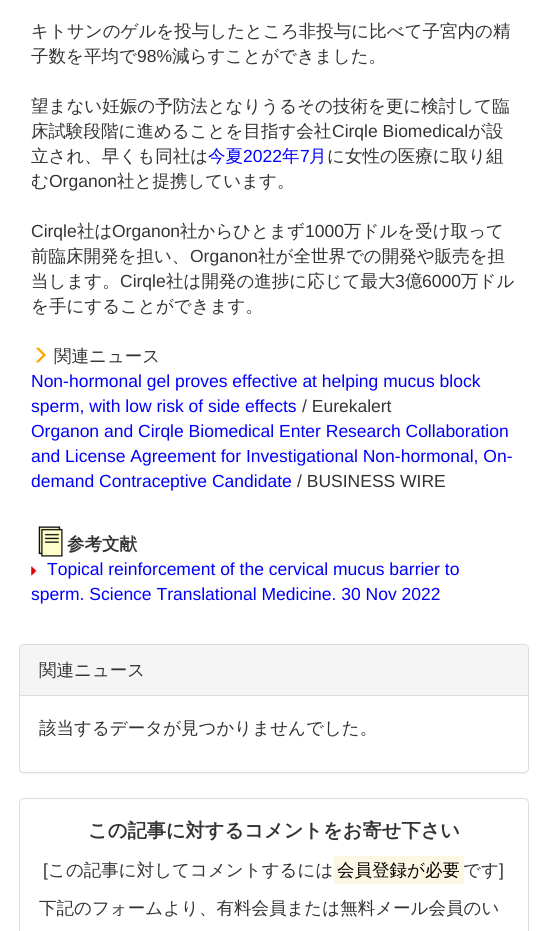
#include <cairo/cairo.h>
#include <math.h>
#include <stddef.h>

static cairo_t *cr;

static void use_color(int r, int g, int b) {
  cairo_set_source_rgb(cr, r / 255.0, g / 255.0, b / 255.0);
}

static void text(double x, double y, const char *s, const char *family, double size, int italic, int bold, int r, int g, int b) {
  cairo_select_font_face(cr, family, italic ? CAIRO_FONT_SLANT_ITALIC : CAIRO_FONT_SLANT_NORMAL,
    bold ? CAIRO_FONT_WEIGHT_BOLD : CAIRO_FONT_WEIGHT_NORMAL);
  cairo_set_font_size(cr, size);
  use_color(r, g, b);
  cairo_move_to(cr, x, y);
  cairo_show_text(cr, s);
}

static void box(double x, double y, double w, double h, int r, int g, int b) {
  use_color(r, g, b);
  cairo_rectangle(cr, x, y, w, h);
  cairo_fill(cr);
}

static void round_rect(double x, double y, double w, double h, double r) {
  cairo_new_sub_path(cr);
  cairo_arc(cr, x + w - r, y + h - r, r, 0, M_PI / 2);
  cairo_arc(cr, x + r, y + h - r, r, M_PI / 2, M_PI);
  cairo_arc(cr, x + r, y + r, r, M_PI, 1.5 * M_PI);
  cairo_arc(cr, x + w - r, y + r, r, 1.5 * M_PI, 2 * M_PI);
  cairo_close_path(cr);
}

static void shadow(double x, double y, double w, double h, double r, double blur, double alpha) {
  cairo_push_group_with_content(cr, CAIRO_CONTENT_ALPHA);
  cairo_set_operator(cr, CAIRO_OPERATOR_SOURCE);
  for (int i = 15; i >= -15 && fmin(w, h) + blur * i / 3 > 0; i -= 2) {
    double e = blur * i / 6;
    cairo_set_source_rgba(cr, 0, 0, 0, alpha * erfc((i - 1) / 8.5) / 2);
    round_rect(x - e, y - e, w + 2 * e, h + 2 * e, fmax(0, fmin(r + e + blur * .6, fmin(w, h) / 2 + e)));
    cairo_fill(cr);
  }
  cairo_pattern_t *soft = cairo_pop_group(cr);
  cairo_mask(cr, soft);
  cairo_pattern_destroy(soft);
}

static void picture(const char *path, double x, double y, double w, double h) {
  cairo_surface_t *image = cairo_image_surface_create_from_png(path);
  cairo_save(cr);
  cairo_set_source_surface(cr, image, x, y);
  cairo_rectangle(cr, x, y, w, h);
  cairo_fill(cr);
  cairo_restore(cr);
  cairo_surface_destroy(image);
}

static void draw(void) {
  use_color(255, 255, 255);
  cairo_paint(cr);
  picture("img_01.png", 36, 347, 10, 16);
  picture("img_02.png", 38, 526, 25, 31);
  picture("img_03.png", 31, 566, 6, 10);
  use_color(0, 0, 0);
  shadow(19, 645, 510, 129, 5, 0.5, 0.05);
  use_color(255, 255, 255);
  round_rect(19.5, 644.5, 509, 128, 4.5);
  cairo_fill_preserve(cr);
  use_color(221, 221, 221);
  cairo_set_line_width(cr, 1);
  cairo_stroke(cr);
  use_color(245, 245, 245);
  cairo_new_path(cr);
  cairo_move_to(cr, 24, 645);
  cairo_line_to(cr, 524, 645);
  cairo_curve_to(cr, 526, 645, 528, 647, 528, 649);
  cairo_line_to(cr, 528, 696);
  cairo_line_to(cr, 20, 696);
  cairo_line_to(cr, 20, 649);
  cairo_curve_to(cr, 20, 647, 22, 645, 24, 645);
  cairo_close_path(cr);
  cairo_fill(cr);
  box(20, 695, 508, 1, 221, 221, 221);
  round_rect(19.5, 798.5, 509, 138, 4.5);
  cairo_stroke(cr);
  box(334, 856, 130, 28, 252, 248, 227);
  text(31, 37, "キトサンのゲルを投与したところ非投与に比べて子宮内の精", "WenQuanYi Zen Hei Medium", 17.5, 0, 0, 51, 51, 51);
  text(31, 62, "子数を平均で", "WenQuanYi Zen Hei Medium", 17.5, 0, 0, 51, 51, 51);
  text(137, 62, "98%", "Liberation Sans", 17.5, 0, 0, 51, 51, 51);
  text(172, 62, "減らすことができました。", "WenQuanYi Zen Hei Medium", 17.5, 0, 0, 51, 51, 51);
  text(31, 112, "望まない妊娠の予防法となりうるその技術を更に検討して臨", "WenQuanYi Zen Hei Medium", 17.5, 0, 0, 51, 51, 51);
  text(31, 137, "床試験段階に進めることを目指す会社", "WenQuanYi Zen Hei Medium", 17.5, 0, 0, 51, 51, 51);
  text(332, 137, "Cirqle Biomedical", "Liberation Sans", 17.5, 0, 0, 51, 51, 51);
  text(468, 137, "が設", "WenQuanYi Zen Hei Medium", 17.5, 0, 0, 51, 51, 51);
  text(31, 162, "立され、早くも同社は", "WenQuanYi Zen Hei Medium", 17.5, 0, 0, 51, 51, 51);
  text(208, 162, "今夏", "WenQuanYi Zen Hei Medium", 17.5, 0, 0, 0, 0, 255);
  text(243, 162, "2022", "Liberation Sans", 17.5, 0, 0, 0, 0, 255);
  text(282, 162, "年", "WenQuanYi Zen Hei Medium", 17.5, 0, 0, 0, 0, 255);
  text(300, 162, "7", "Liberation Sans", 17.5, 0, 0, 0, 0, 255);
  text(309, 162, "月", "WenQuanYi Zen Hei Medium", 17.5, 0, 0, 0, 0, 255);
  text(327, 162, "に女性の医療に取り組", "WenQuanYi Zen Hei Medium", 17.5, 0, 0, 51, 51, 51);
  text(31, 187, "む", "WenQuanYi Zen Hei Medium", 17.5, 0, 0, 51, 51, 51);
  text(49, 187, "Organon", "Liberation Sans", 17.5, 0, 0, 51, 51, 51);
  text(117, 187, "社と提携しています。", "WenQuanYi Zen Hei Medium", 17.5, 0, 0, 51, 51, 51);
  text(31, 237, "Cirqle", "Liberation Sans", 17.5, 0, 0, 51, 51, 51);
  text(77, 237, "社は", "WenQuanYi Zen Hei Medium", 17.5, 0, 0, 51, 51, 51);
  text(112, 237, "Organon", "Liberation Sans", 17.5, 0, 0, 51, 51, 51);
  text(180, 237, "社からひとまず", "WenQuanYi Zen Hei Medium", 17.5, 0, 0, 51, 51, 51);
  text(305, 237, "1000", "Liberation Sans", 17.5, 0, 0, 51, 51, 51);
  text(344, 237, "万ドルを受け取って", "WenQuanYi Zen Hei Medium", 17.5, 0, 0, 51, 51, 51);
  text(31, 262, "前臨床開発を担い、", "WenQuanYi Zen Hei Medium", 17.5, 0, 0, 51, 51, 51);
  text(190, 262, "Organon", "Liberation Sans", 17.5, 0, 0, 51, 51, 51);
  text(258, 262, "社が全世界での開発や販売を担", "WenQuanYi Zen Hei Medium", 17.5, 0, 0, 51, 51, 51);
  text(31, 287, "当します。", "WenQuanYi Zen Hei Medium", 17.5, 0, 0, 51, 51, 51);
  text(120, 287, "Cirqle", "Liberation Sans", 17.5, 0, 0, 51, 51, 51);
  text(166, 287, "社は開発の進捗に応じて最大", "WenQuanYi Zen Hei Medium", 17.5, 0, 0, 51, 51, 51);
  text(395, 287, "3", "Liberation Sans", 17.5, 0, 0, 51, 51, 51);
  text(405, 287, "億", "WenQuanYi Zen Hei Medium", 17.5, 0, 0, 51, 51, 51);
  text(422, 287, "6000", "Liberation Sans", 17.5, 0, 0, 51, 51, 51);
  text(461, 287, "万ドル", "WenQuanYi Zen Hei Medium", 17.5, 0, 0, 51, 51, 51);
  text(31, 312, "を手にすることができます。", "WenQuanYi Zen Hei Medium", 17.5, 0, 0, 51, 51, 51);
  text(54, 362, "関連ニュース", "WenQuanYi Zen Hei Medium", 17.5, 0, 0, 51, 51, 51);
  text(31, 387, "Non-hormonal gel proves effective at helping mucus block", "Liberation Sans", 17.5, 0, 0, 0, 0, 255);
  text(31, 412, "sperm, with low risk of side effects", "Liberation Sans", 17.5, 0, 0, 0, 0, 255);
  text(302, 412, "/ Eurekalert", "Liberation Sans", 17.5, 0, 0, 51, 51, 51);
  text(31, 437, "Organon and Cirqle Biomedical Enter Research Collaboration", "Liberation Sans", 17.5, 0, 0, 0, 0, 255);
  text(31, 462, "and License Agreement for Investigational Non-hormonal, On-", "Liberation Sans", 17.5, 0, 0, 0, 0, 255);
  text(31, 487, "demand Contraceptive Candidate", "Liberation Sans", 17.5, 0, 0, 0, 0, 255);
  text(297, 487, "/ BUSINESS WIRE", "Liberation Sans", 17.5, 0, 0, 51, 51, 51);
  text(67, 550, "参考文献", "WenQuanYi Zen Hei", 17.5, 0, 1, 51, 51, 51);
  text(47, 575, "Topical reinforcement of the cervical mucus barrier to", "Liberation Sans", 17.5, 0, 0, 0, 0, 255);
  text(31, 600, "sperm. Science Translational Medicine. 30 Nov 2022", "Liberation Sans", 17.5, 0, 0, 0, 0, 255);
  text(39, 676, "関連ニュース", "WenQuanYi Zen Hei Medium", 17.5, 0, 0, 51, 51, 51);
  text(39, 734, "該当するデータが見つかりませんでした。", "WenQuanYi Zen Hei Medium", 17.5, 0, 0, 51, 51, 51);
  text(88, 837, "この記事に対するコメントをお寄せ下さい", "WenQuanYi Zen Hei", 19.25, 0, 1, 51, 51, 51);
  text(43, 876, "[", "Liberation Sans", 17.5, 0, 0, 51, 51, 51);
  text(48, 876, "この記事に対してコメントするには", "WenQuanYi Zen Hei Medium", 17.5, 0, 0, 51, 51, 51);
  text(337, 876, "会員登録が必要", "WenQuanYi Zen Hei Medium", 17.5, 0, 0, 0, 0, 0);
  text(463, 876, "です", "WenQuanYi Zen Hei Medium", 17.5, 0, 0, 51, 51, 51);
  text(499, 876, "]", "Liberation Sans", 17.5, 0, 0, 51, 51, 51);
  text(39, 914, "下記のフォームより、有料会員または無料メール会員のい", "WenQuanYi Zen Hei Medium", 17.5, 0, 0, 51, 51, 51);
}

int main(void) {
  cairo_surface_t *surface = cairo_image_surface_create(CAIRO_FORMAT_RGB24, 547, 931);
  cr = cairo_create(surface);
  cairo_font_options_t *options = cairo_font_options_create();
  cairo_font_options_set_hint_metrics(options, CAIRO_HINT_METRICS_OFF);
  cairo_font_options_set_hint_style(options, CAIRO_HINT_STYLE_NONE);
  cairo_set_font_options(cr, options);
  cairo_set_miter_limit(cr, 4);
  draw();
  cairo_surface_write_to_png(surface, "out.png");
  cairo_font_options_destroy(options);
  cairo_destroy(cr);
  cairo_surface_destroy(surface);
  return 0;
}
